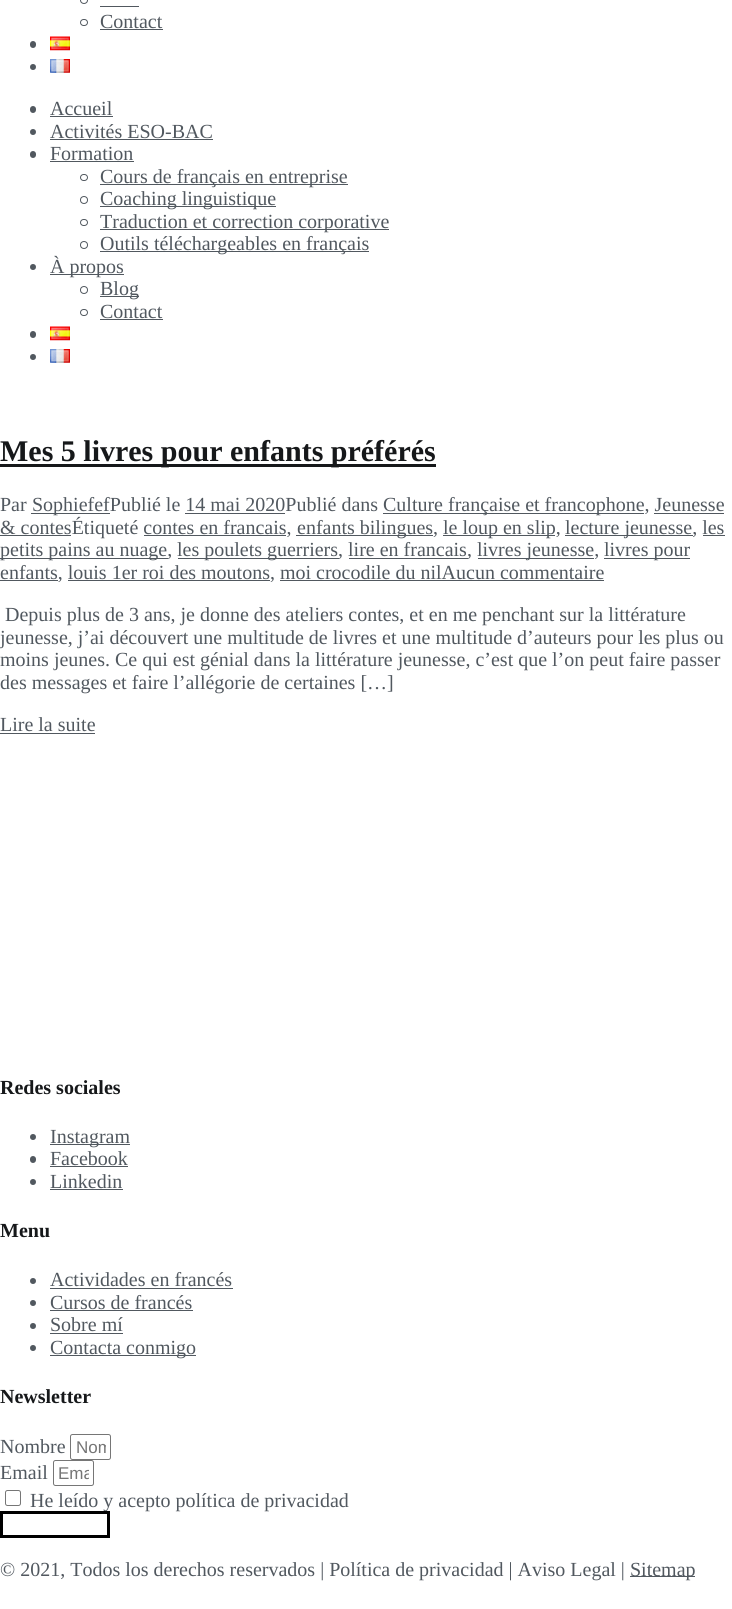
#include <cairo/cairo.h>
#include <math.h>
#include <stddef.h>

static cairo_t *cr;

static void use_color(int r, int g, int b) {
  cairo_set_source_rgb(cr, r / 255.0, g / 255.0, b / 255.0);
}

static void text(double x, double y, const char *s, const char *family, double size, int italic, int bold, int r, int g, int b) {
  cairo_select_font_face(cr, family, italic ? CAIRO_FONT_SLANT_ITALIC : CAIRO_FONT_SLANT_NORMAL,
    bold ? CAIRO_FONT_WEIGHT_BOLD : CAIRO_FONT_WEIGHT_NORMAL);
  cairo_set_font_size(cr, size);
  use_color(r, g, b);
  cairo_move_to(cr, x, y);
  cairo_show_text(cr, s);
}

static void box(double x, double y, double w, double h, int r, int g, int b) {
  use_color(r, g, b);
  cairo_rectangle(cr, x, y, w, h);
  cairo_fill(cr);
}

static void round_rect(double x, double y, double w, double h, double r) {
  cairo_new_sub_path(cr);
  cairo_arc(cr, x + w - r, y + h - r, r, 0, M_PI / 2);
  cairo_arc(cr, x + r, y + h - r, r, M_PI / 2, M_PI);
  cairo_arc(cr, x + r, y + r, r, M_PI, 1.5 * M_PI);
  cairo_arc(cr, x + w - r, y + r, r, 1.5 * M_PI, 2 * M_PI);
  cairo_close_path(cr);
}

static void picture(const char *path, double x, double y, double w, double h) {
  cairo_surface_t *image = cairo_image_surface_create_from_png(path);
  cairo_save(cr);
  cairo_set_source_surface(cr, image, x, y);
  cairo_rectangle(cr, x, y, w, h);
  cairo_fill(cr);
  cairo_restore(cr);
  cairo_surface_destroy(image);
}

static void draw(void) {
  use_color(255, 255, 255);
  cairo_paint(cr);
  cairo_arc(cr, 84, 0, 3.5, 0, 2 * M_PI);
  use_color(81, 88, 95);
  cairo_set_line_width(cr, 1);
  cairo_stroke(cr);
  box(100, 6, 39, 1, 81, 88, 95);
  round_rect(80.5, 19.5, 7, 6, 3);
  cairo_stroke(cr);
  box(100, 29, 63, 1, 81, 88, 95);
  round_rect(30, 41, 6, 7, 3);
  cairo_fill(cr);
  picture("img_01.png", 50, 36, 20, 15);
  cairo_arc(cr, 33, 67, 3, 0, 2 * M_PI);
  cairo_fill(cr);
  picture("img_02.png", 50, 59, 20, 14);
  round_rect(30, 106, 6, 7, 3);
  cairo_fill(cr);
  box(50, 116, 63, 1, 81, 88, 95);
  cairo_arc(cr, 33, 132, 3, 0, 2 * M_PI);
  cairo_fill(cr);
  box(50, 139, 163, 1, 81, 88, 95);
  round_rect(30, 151, 6, 7, 3);
  cairo_fill(cr);
  box(50, 161, 84, 1, 81, 88, 95);
  round_rect(80.5, 174.5, 7, 6, 3);
  cairo_stroke(cr);
  box(100, 184, 248, 1, 81, 88, 95);
  cairo_arc(cr, 84, 200, 3.5, 0, 2 * M_PI);
  cairo_stroke(cr);
  box(100, 206, 176, 1, 81, 88, 95);
  round_rect(80.5, 219.5, 7, 6, 3);
  cairo_stroke(cr);
  box(100, 229, 289, 1, 81, 88, 95);
  cairo_arc(cr, 84, 245, 3.5, 0, 2 * M_PI);
  cairo_stroke(cr);
  box(100, 251, 269, 1, 81, 88, 95);
  cairo_arc(cr, 33, 267, 3, 0, 2 * M_PI);
  cairo_fill(cr);
  box(50, 274, 74, 1, 81, 88, 95);
  cairo_arc(cr, 84, 290, 3.5, 0, 2 * M_PI);
  cairo_stroke(cr);
  box(100, 296, 39, 1, 81, 88, 95);
  round_rect(80.5, 309.5, 7, 6, 3);
  cairo_stroke(cr);
  box(100, 319, 63, 1, 81, 88, 95);
  round_rect(30, 331, 6, 7, 3);
  cairo_fill(cr);
  picture("img_01.png", 50, 326, 20, 15);
  cairo_arc(cr, 33, 357, 3, 0, 2 * M_PI);
  cairo_fill(cr);
  picture("img_03.png", 50, 349, 20, 14);
  box(0, 464, 436, 3, 22, 24, 26);
  box(31, 513, 79, 1, 81, 88, 95);
  box(383, 513, 261, 1, 81, 88, 95);
  box(654, 513, 70, 1, 81, 88, 95);
  box(185, 513, 100, 1, 81, 88, 95);
  box(0, 535, 71, 1, 81, 88, 95);
  box(144, 535, 142, 1, 81, 88, 95);
  box(296, 535, 137, 1, 81, 88, 95);
  box(443, 535, 112, 1, 81, 88, 95);
  box(565, 535, 128, 1, 81, 88, 95);
  box(703, 535, 22, 1, 81, 88, 95);
  box(0, 558, 168, 1, 81, 88, 95);
  box(178, 558, 161, 1, 81, 88, 95);
  box(349, 558, 119, 1, 81, 88, 95);
  box(478, 558, 116, 1, 81, 88, 95);
  box(604, 558, 86, 1, 81, 88, 95);
  box(0, 580, 58, 1, 81, 88, 95);
  box(68, 580, 202, 1, 81, 88, 95);
  box(280, 580, 324, 1, 81, 88, 95);
  box(0, 733, 95, 1, 81, 88, 95);
  cairo_arc(cr, 33, 1137, 3, 0, 2 * M_PI);
  cairo_fill(cr);
  box(50, 1144, 80, 1, 81, 88, 95);
  round_rect(30, 1156, 6, 7, 3);
  cairo_fill(cr);
  box(50, 1166, 78, 1, 81, 88, 95);
  cairo_arc(cr, 33, 1182, 3, 0, 2 * M_PI);
  cairo_fill(cr);
  box(50, 1189, 73, 1, 81, 88, 95);
  cairo_arc(cr, 33, 1281, 3, 0, 2 * M_PI);
  cairo_fill(cr);
  box(50, 1288, 183, 1, 81, 88, 95);
  cairo_arc(cr, 33, 1303, 3, 0, 2 * M_PI);
  cairo_fill(cr);
  box(50, 1310, 143, 1, 81, 88, 95);
  cairo_arc(cr, 33, 1326, 3, 0, 2 * M_PI);
  cairo_fill(cr);
  box(50, 1333, 73, 1, 81, 88, 95);
  cairo_arc(cr, 33, 1348, 3, 0, 2 * M_PI);
  cairo_fill(cr);
  box(50, 1355, 146, 1, 81, 88, 95);
  round_rect(70.5, 1434.5, 40, 25, 2);
  use_color(118, 118, 118);
  cairo_stroke(cr);
  round_rect(53.5, 1460.5, 40, 25, 2);
  cairo_stroke(cr);
  round_rect(5.5, 1490.5, 15, 15, 2);
  cairo_stroke(cr);
  box(630, 1576, 65, 1, 81, 88, 95);
  text(100, 28, "Contact", "Liberation Serif", 20, 0, 0, 81, 88, 95);
  text(50, 115, "Accueil", "Liberation Serif", 20, 0, 0, 81, 88, 95);
  text(50, 138, "Activités ESO-BAC", "Liberation Serif", 20, 0, 0, 81, 88, 95);
  text(50, 160, "Formation", "Liberation Serif", 20, 0, 0, 81, 88, 95);
  text(100, 183, "Cours de français en entreprise", "Liberation Serif", 20, 0, 0, 81, 88, 95);
  text(100, 205, "Coaching linguistique", "Liberation Serif", 20, 0, 0, 81, 88, 95);
  text(100, 228, "Traduction et correction corporative", "Liberation Serif", 20, 0, 0, 81, 88, 95);
  text(100, 250, "Outils téléchargeables en français", "Liberation Serif", 20, 0, 0, 81, 88, 95);
  text(50, 273, "À propos", "Liberation Serif", 20, 0, 0, 81, 88, 95);
  text(100, 295, "Blog", "Liberation Serif", 20, 0, 0, 81, 88, 95);
  text(100, 318, "Contact", "Liberation Serif", 20, 0, 0, 81, 88, 95);
  text(0, 461, "Mes 5 livres pour enfants préférés", "Liberation Serif", 30, 0, 1, 22, 24, 26);
  text(0, 511, "Par", "Liberation Serif", 20, 0, 0, 81, 88, 95);
  text(32, 511, "SophiefefPublié le 14 mai 2020Publié dans", "Liberation Serif", 20, 0, 0, 81, 88, 95);
  text(383, 511, "Culture française et francophone, Jeunesse", "Liberation Serif", 20, 0, 0, 81, 88, 95);
  text(0, 534, "& contesÉtiqueté contes en francais,", "Liberation Serif", 20, 0, 0, 81, 88, 95);
  text(297, 534, "enfants bilingues,", "Liberation Serif", 20, 0, 0, 81, 88, 95);
  text(443, 534, "le loup en slip,", "Liberation Serif", 20, 0, 0, 81, 88, 95);
  text(565, 534, "lecture jeunesse, les", "Liberation Serif", 20, 0, 0, 81, 88, 95);
  text(0, 556, "petits pains au nuage,", "Liberation Serif", 20, 0, 0, 81, 88, 95);
  text(177, 556, "les poulets guerriers, lire en francais", "Liberation Serif", 20, 0, 0, 81, 88, 95);
  text(467, 556, ",", "Liberation Serif", 20, 0, 0, 81, 88, 95);
  text(477, 556, "livres jeunesse,", "Liberation Serif", 20, 0, 0, 81, 88, 95);
  text(604, 556, "livres pour", "Liberation Serif", 20, 0, 0, 81, 88, 95);
  text(0, 579, "enfants, louis 1er roi des moutons, moi crocodile du nilAucun commentaire", "Liberation Serif", 20, 0, 0, 81, 88, 95);
  text(5, 621, "Depuis plus de 3 ans, je donne des ateliers contes, et en me penchant sur la littérature", "Liberation Serif", 20, 0, 0, 81, 88, 95);
  text(0, 644, "jeunesse, j’ai découvert une multitude de livres et une multitude d’auteurs pour les plus ou", "Liberation Serif", 20, 0, 0, 81, 88, 95);
  text(0, 666, "moins jeunes. Ce qui est génial dans la littérature jeunesse, c’est que l’on peut faire passer", "Liberation Serif", 20, 0, 0, 81, 88, 95);
  text(0, 689, "des messages et faire l’allégorie de certaines […]", "Liberation Serif", 20, 0, 0, 81, 88, 95);
  text(0, 731, "Lire la suite", "Liberation Serif", 20, 0, 0, 81, 88, 95);
  text(0, 1094, "Redes sociales", "Liberation Serif", 20, 0, 1, 22, 24, 26);
  text(50, 1143, "Instagram", "Liberation Serif", 20, 0, 0, 81, 88, 95);
  text(50, 1165, "Facebook", "Liberation Serif", 20, 0, 0, 81, 88, 95);
  text(50, 1188, "Linkedin", "Liberation Serif", 20, 0, 0, 81, 88, 95);
  text(0, 1237, "Menu", "Liberation Serif", 20, 0, 1, 22, 24, 26);
  text(50, 1286, "Actividades en francés", "Liberation Serif", 20, 0, 0, 81, 88, 95);
  text(50, 1309, "Cursos de francés", "Liberation Serif", 20, 0, 0, 81, 88, 95);
  text(50, 1331, "Sobre mí", "Liberation Serif", 20, 0, 0, 81, 88, 95);
  text(50, 1354, "Contacta conmigo", "Liberation Serif", 20, 0, 0, 81, 88, 95);
  text(0, 1403, "Newsletter", "Liberation Serif", 20, 0, 1, 22, 24, 26);
  text(0, 1453, "Nombre", "Liberation Serif", 20, 0, 0, 81, 88, 95);
  cairo_save(cr);
  cairo_rectangle(cr, 75, 1438, 31, 18);
  cairo_clip(cr);
  text(76, 1453, "Nom", "Liberation Sans", 17, 0, 0, 117, 117, 117);
  cairo_restore(cr);
  text(0, 1479, "Email", "Liberation Serif", 20, 0, 0, 81, 88, 95);
  cairo_save(cr);
  cairo_rectangle(cr, 58, 1464, 31, 19);
  cairo_clip(cr);
  text(58, 1479, "Ema", "Liberation Sans", 17, 0, 0, 117, 117, 117);
  cairo_restore(cr);
  text(30, 1507, "He leído y acepto política de privacidad", "Liberation Serif", 20, 0, 0, 81, 88, 95);
  cairo_rectangle(cr, 1.5, 1512.5, 107, 24);
  use_color(0, 0, 0);
  cairo_set_line_width(cr, 3);
  cairo_stroke(cr);
  text(0, 1576, "© 2021, Todos los derechos reservados | Política de privacidad | Aviso Legal |", "Liberation Serif", 20, 0, 0, 81, 88, 95);
  text(630, 1576, "Sitemap", "Liberation Serif", 20, 0, 0, 81, 88, 95);
}

int main(void) {
  cairo_surface_t *surface = cairo_image_surface_create(CAIRO_FORMAT_RGB24, 732, 1609);
  cr = cairo_create(surface);
  cairo_font_options_t *options = cairo_font_options_create();
  cairo_font_options_set_hint_metrics(options, CAIRO_HINT_METRICS_OFF);
  cairo_font_options_set_hint_style(options, CAIRO_HINT_STYLE_NONE);
  cairo_set_font_options(cr, options);
  cairo_set_miter_limit(cr, 4);
  draw();
  cairo_surface_write_to_png(surface, "out.png");
  cairo_font_options_destroy(options);
  cairo_destroy(cr);
  cairo_surface_destroy(surface);
  return 0;
}
